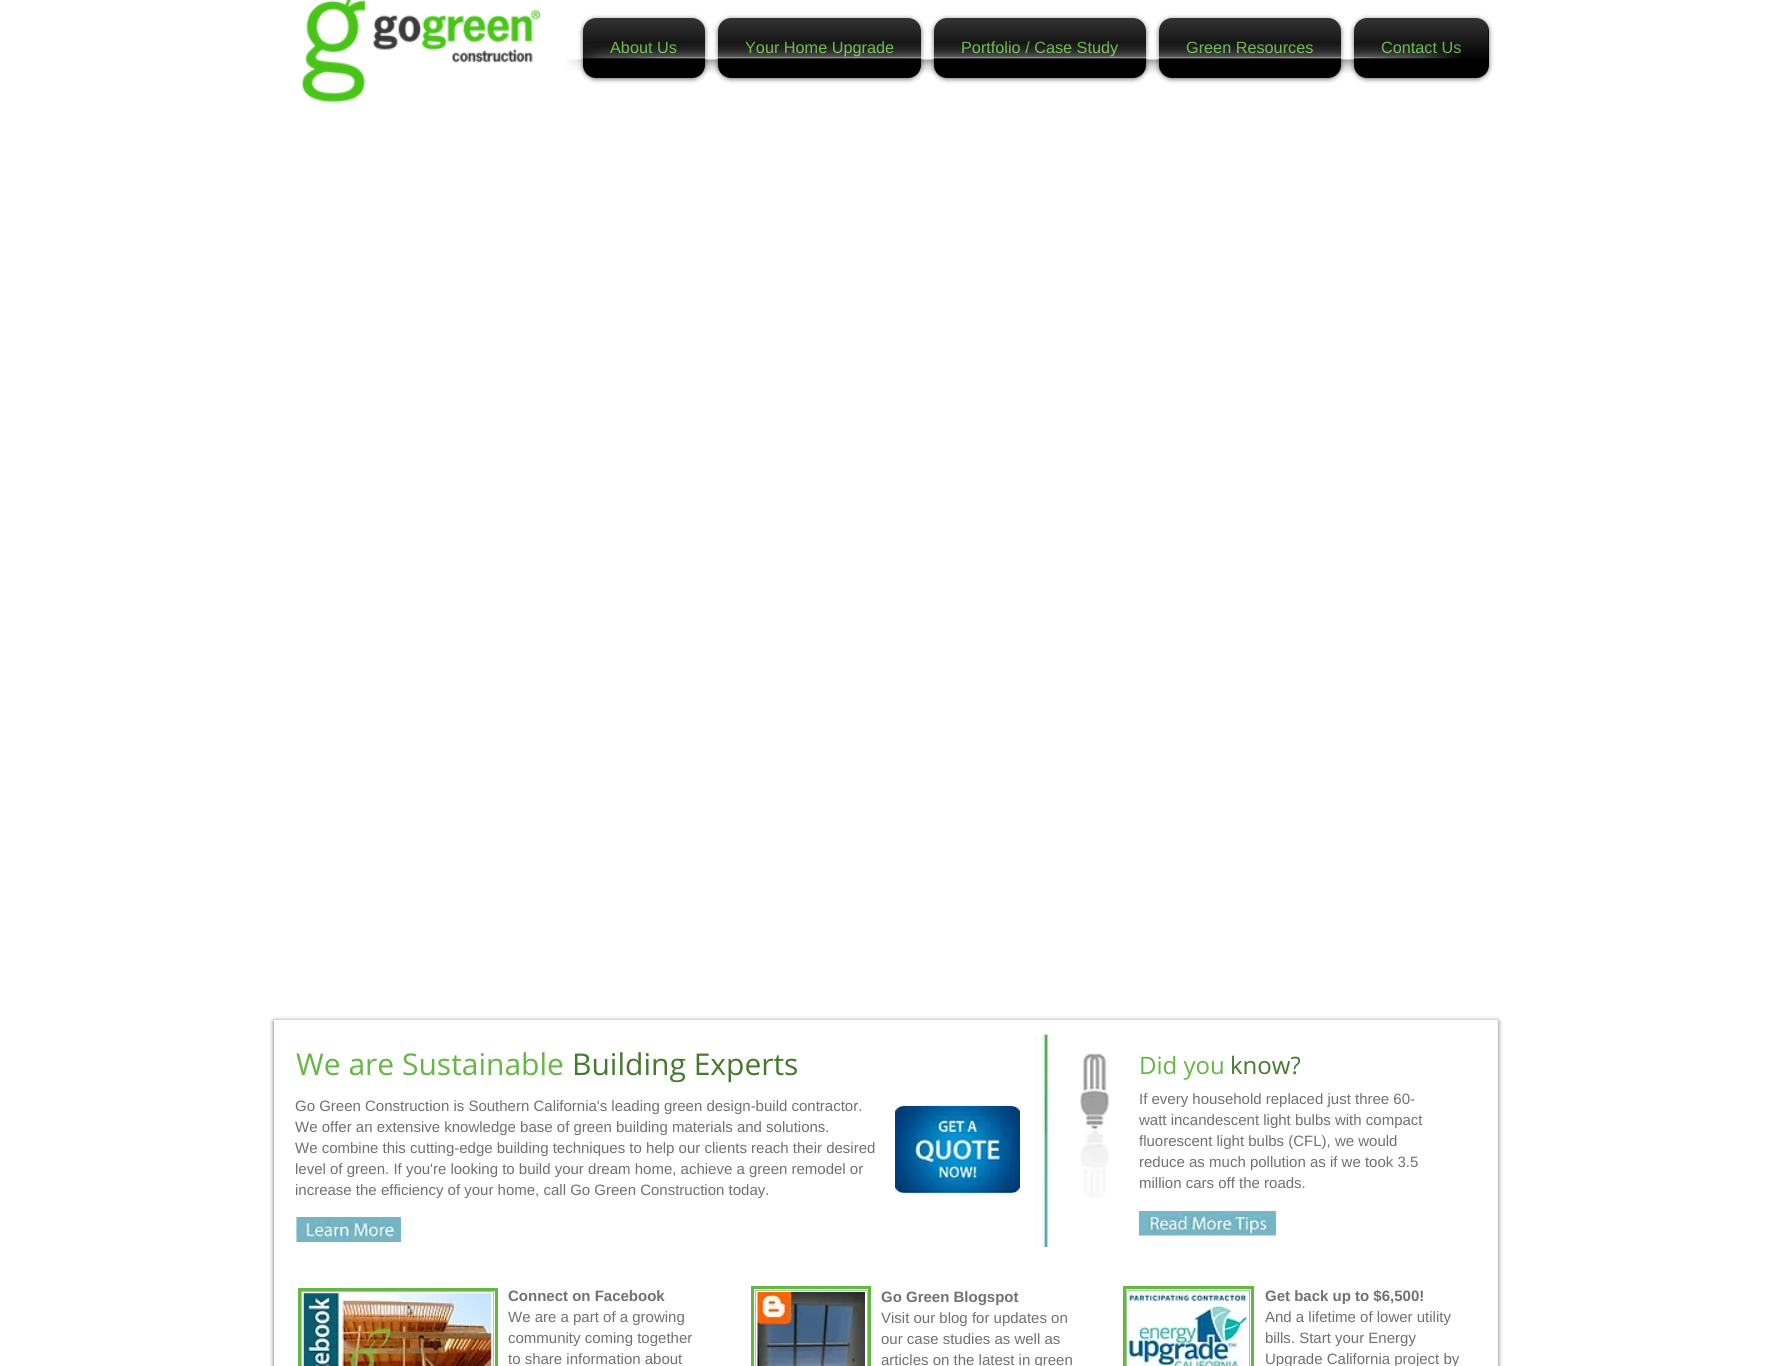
#include <cairo/cairo.h>
#include <math.h>
#include <stddef.h>

static cairo_t *cr;

static void use_color(int r, int g, int b) {
  cairo_set_source_rgb(cr, r / 255.0, g / 255.0, b / 255.0);
}

static void text(double x, double y, const char *s, const char *family, double size, int italic, int bold, int r, int g, int b) {
  cairo_select_font_face(cr, family, italic ? CAIRO_FONT_SLANT_ITALIC : CAIRO_FONT_SLANT_NORMAL,
    bold ? CAIRO_FONT_WEIGHT_BOLD : CAIRO_FONT_WEIGHT_NORMAL);
  cairo_set_font_size(cr, size);
  use_color(r, g, b);
  cairo_move_to(cr, x, y);
  cairo_show_text(cr, s);
}

static void box(double x, double y, double w, double h, int r, int g, int b) {
  use_color(r, g, b);
  cairo_rectangle(cr, x, y, w, h);
  cairo_fill(cr);
}

static void round_rect(double x, double y, double w, double h, double r) {
  cairo_new_sub_path(cr);
  cairo_arc(cr, x + w - r, y + h - r, r, 0, M_PI / 2);
  cairo_arc(cr, x + r, y + h - r, r, M_PI / 2, M_PI);
  cairo_arc(cr, x + r, y + r, r, M_PI, 1.5 * M_PI);
  cairo_arc(cr, x + w - r, y + r, r, 1.5 * M_PI, 2 * M_PI);
  cairo_close_path(cr);
}

static void shadow(double x, double y, double w, double h, double r, double blur, double alpha) {
  cairo_push_group_with_content(cr, CAIRO_CONTENT_ALPHA);
  cairo_set_operator(cr, CAIRO_OPERATOR_SOURCE);
  for (int i = 15; i >= -15 && fmin(w, h) + blur * i / 3 > 0; i -= 2) {
    double e = blur * i / 6;
    cairo_set_source_rgba(cr, 0, 0, 0, alpha * erfc((i - 1) / 8.5) / 2);
    round_rect(x - e, y - e, w + 2 * e, h + 2 * e, fmax(0, fmin(r + e + blur * .6, fmin(w, h) / 2 + e)));
    cairo_fill(cr);
  }
  cairo_pattern_t *soft = cairo_pop_group(cr);
  cairo_mask(cr, soft);
  cairo_pattern_destroy(soft);
}

static void picture(const char *path, double x, double y, double w, double h) {
  cairo_surface_t *image = cairo_image_surface_create_from_png(path);
  cairo_save(cr);
  cairo_set_source_surface(cr, image, x, y);
  cairo_rectangle(cr, x, y, w, h);
  cairo_fill(cr);
  cairo_restore(cr);
  cairo_surface_destroy(image);
}

static void draw(void) {
  use_color(255, 255, 255);
  cairo_paint(cr);
  picture("img_01.png", 302, 0, 238, 103);
  use_color(0, 0, 0);
  shadow(583, 19, 122, 60, 13, 2.5, 0.6);
  use_color(0, 0, 0);
  round_rect(583, 18, 122, 60, 13);
  cairo_fill(cr);
  picture("img_02.png", 583, 17, 122, 41);
  picture("img_03.png", 583, 66, 4, 8);
  use_color(0, 0, 0);
  shadow(718, 19, 203, 60, 13, 2.5, 0.6);
  use_color(0, 0, 0);
  round_rect(718, 18, 203, 60, 13);
  cairo_fill(cr);
  picture("img_04.png", 718, 17, 203, 41);
  picture("img_05.png", 718, 66, 203, 8);
  use_color(0, 0, 0);
  shadow(934, 19, 212, 60, 13, 2.5, 0.6);
  use_color(0, 0, 0);
  round_rect(934, 18, 212, 60, 13);
  cairo_fill(cr);
  picture("img_06.png", 934, 17, 212, 41);
  cairo_set_source_rgba(cr, 0, 0, 0, 0.13);
  cairo_rectangle(cr, 934, 66, 212, 5);
  cairo_fill(cr);
  use_color(0, 0, 0);
  shadow(1159, 19, 182, 60, 13, 2.5, 0.6);
  use_color(0, 0, 0);
  round_rect(1159, 18, 182, 60, 13);
  cairo_fill(cr);
  picture("img_07.png", 1159, 17, 182, 41);
  cairo_set_source_rgba(cr, 0, 0, 0, 0.13);
  cairo_rectangle(cr, 1159, 66, 182, 5);
  cairo_fill(cr);
  use_color(0, 0, 0);
  shadow(1354, 19, 135, 60, 13, 2.5, 0.6);
  use_color(0, 0, 0);
  round_rect(1354, 18, 135, 60, 13);
  cairo_fill(cr);
  picture("img_08.png", 1354, 17, 135, 41);
  picture("img_09.png", 1354, 66, 2, 5);
  use_color(0, 0, 0);
  shadow(274, 1021, 1224, 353, 0, 2.5, 0.6);
  box(274, 1020, 1224, 346, 255, 255, 255);
  picture("img_13.png", 1035, 1034, 17, 213);
  picture("img_14.png", 895, 1105, 125, 89);
  picture("img_15.png", 296, 1217, 106, 25);
  picture("img_16.png", 1138, 1210, 139, 26);
  cairo_rectangle(cr, 299.5, 1289.5, 197, 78);
  use_color(100, 183, 67);
  cairo_set_line_width(cr, 3);
  cairo_stroke(cr);
  picture("img_17.png", 303, 1293, 189, 73);
  cairo_rectangle(cr, 301.5, 1291.5, 192, 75);
  use_color(160, 207, 142);
  cairo_set_line_width(cr, 1);
  cairo_stroke(cr);
  cairo_rectangle(cr, 752.5, 1287.5, 117, 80);
  use_color(100, 183, 67);
  cairo_set_line_width(cr, 3);
  cairo_stroke(cr);
  picture("img_18.png", 757, 1292, 108, 74);
  cairo_rectangle(cr, 755.5, 1290.5, 112, 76);
  use_color(160, 207, 142);
  cairo_set_line_width(cr, 1);
  cairo_stroke(cr);
  cairo_rectangle(cr, 1124.5, 1287.5, 128, 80);
  use_color(100, 183, 67);
  cairo_set_line_width(cr, 3);
  cairo_stroke(cr);
  picture("img_19.png", 1128, 1292, 120, 74);
  cairo_rectangle(cr, 1126.5, 1290.5, 123, 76);
  use_color(160, 207, 142);
  cairo_set_line_width(cr, 1);
  cairo_stroke(cr);
  picture("img_20.png", 1080, 1052, 30, 146);
  text(610, 53, "About Us", "Liberation Sans", 16.25, 0, 0, 100, 183, 67);
  text(745, 53, "Your Home Upgrade", "Liberation Sans", 16.25, 0, 0, 100, 183, 67);
  text(961, 53, "Portfolio / Case Study", "Liberation Sans", 16.25, 0, 0, 100, 183, 67);
  text(1186, 53, "Green Resources", "Liberation Sans", 16.25, 0, 0, 100, 183, 67);
  text(1381, 53, "Contact Us", "Liberation Sans", 16.25, 0, 0, 100, 183, 67);
  picture("img_10.png", 565, 44, 120, 27);
  picture("img_11.png", 685, 44, 657, 30);
  picture("img_12.png", 1341, 44, 121, 29);
  text(296, 1075, "We are Sustainable", "Open Sans", 30, 0, 0, 100, 183, 67);
  text(572, 1075, "Building Experts", "Open Sans", 30, 0, 0, 67, 122, 45);
  text(295, 1111, "Go Green Construction is Southern California's leading green design-build contractor.", "Liberation Sans", 15, 0, 0, 113, 112, 112);
  text(295, 1132, "We offer an extensive knowledge base of green building materials and solutions.", "Liberation Sans", 15, 0, 0, 113, 112, 112);
  text(295, 1153, "We combine this cutting-edge building techniques to help our clients reach their desired", "Liberation Sans", 15, 0, 0, 113, 112, 112);
  text(295, 1174, "level of green. If you're looking to build your dream home, achieve a green remodel or", "Liberation Sans", 15, 0, 0, 113, 112, 112);
  text(295, 1195, "increase the efficiency of your home, call Go Green Construction today.", "Liberation Sans", 15, 0, 0, 113, 112, 112);
  text(508, 1301, "Connect on Facebook", "Liberation Sans", 15, 0, 1, 113, 112, 112);
  text(508, 1322, "We are a part of a growing", "Liberation Sans", 15, 0, 0, 113, 112, 112);
  text(508, 1343, "community coming together", "Liberation Sans", 15, 0, 0, 113, 112, 112);
  text(508, 1364, "to share information about", "Liberation Sans", 15, 0, 0, 113, 112, 112);
  text(881, 1302, "Go Green Blogspot", "Liberation Sans", 15, 0, 1, 113, 112, 112);
  text(881, 1323, "Visit our blog for updates on", "Liberation Sans", 15, 0, 0, 113, 112, 112);
  text(881, 1344, "our case studies as well as", "Liberation Sans", 15, 0, 0, 113, 112, 112);
  text(881, 1365, "articles on the latest in green", "Liberation Sans", 15, 0, 0, 113, 112, 112);
  text(1265, 1301, "Get back up to $6,500!", "Liberation Sans", 15, 0, 1, 113, 112, 112);
  text(1265, 1322, "And a lifetime of lower utility", "Liberation Sans", 15, 0, 0, 113, 112, 112);
  text(1265, 1343, "bills. Start your Energy", "Liberation Sans", 15, 0, 0, 113, 112, 112);
  text(1265, 1364, "Upgrade California project by", "Liberation Sans", 15, 0, 0, 113, 112, 112);
  text(1139, 1074, "Did you", "Open Sans", 24, 0, 0, 100, 183, 67);
  text(1230, 1074, "know?", "Open Sans", 24, 0, 0, 67, 122, 45);
  text(1139, 1104, "If every household replaced just three 60-", "Liberation Sans", 15, 0, 0, 113, 112, 112);
  text(1139, 1125, "watt incandescent light bulbs with compact", "Liberation Sans", 15, 0, 0, 113, 112, 112);
  text(1139, 1146, "fluorescent light bulbs (CFL), we would", "Liberation Sans", 15, 0, 0, 113, 112, 112);
  text(1139, 1167, "reduce as much pollution as if we took 3.5", "Liberation Sans", 15, 0, 0, 113, 112, 112);
  text(1139, 1188, "million cars off the roads.", "Liberation Sans", 15, 0, 0, 113, 112, 112);
}

int main(void) {
  cairo_surface_t *surface = cairo_image_surface_create(CAIRO_FORMAT_RGB24, 1770, 1366);
  cr = cairo_create(surface);
  cairo_font_options_t *options = cairo_font_options_create();
  cairo_font_options_set_hint_metrics(options, CAIRO_HINT_METRICS_OFF);
  cairo_font_options_set_hint_style(options, CAIRO_HINT_STYLE_NONE);
  cairo_set_font_options(cr, options);
  cairo_set_miter_limit(cr, 4);
  draw();
  cairo_surface_write_to_png(surface, "out.png");
  cairo_font_options_destroy(options);
  cairo_destroy(cr);
  cairo_surface_destroy(surface);
  return 0;
}
